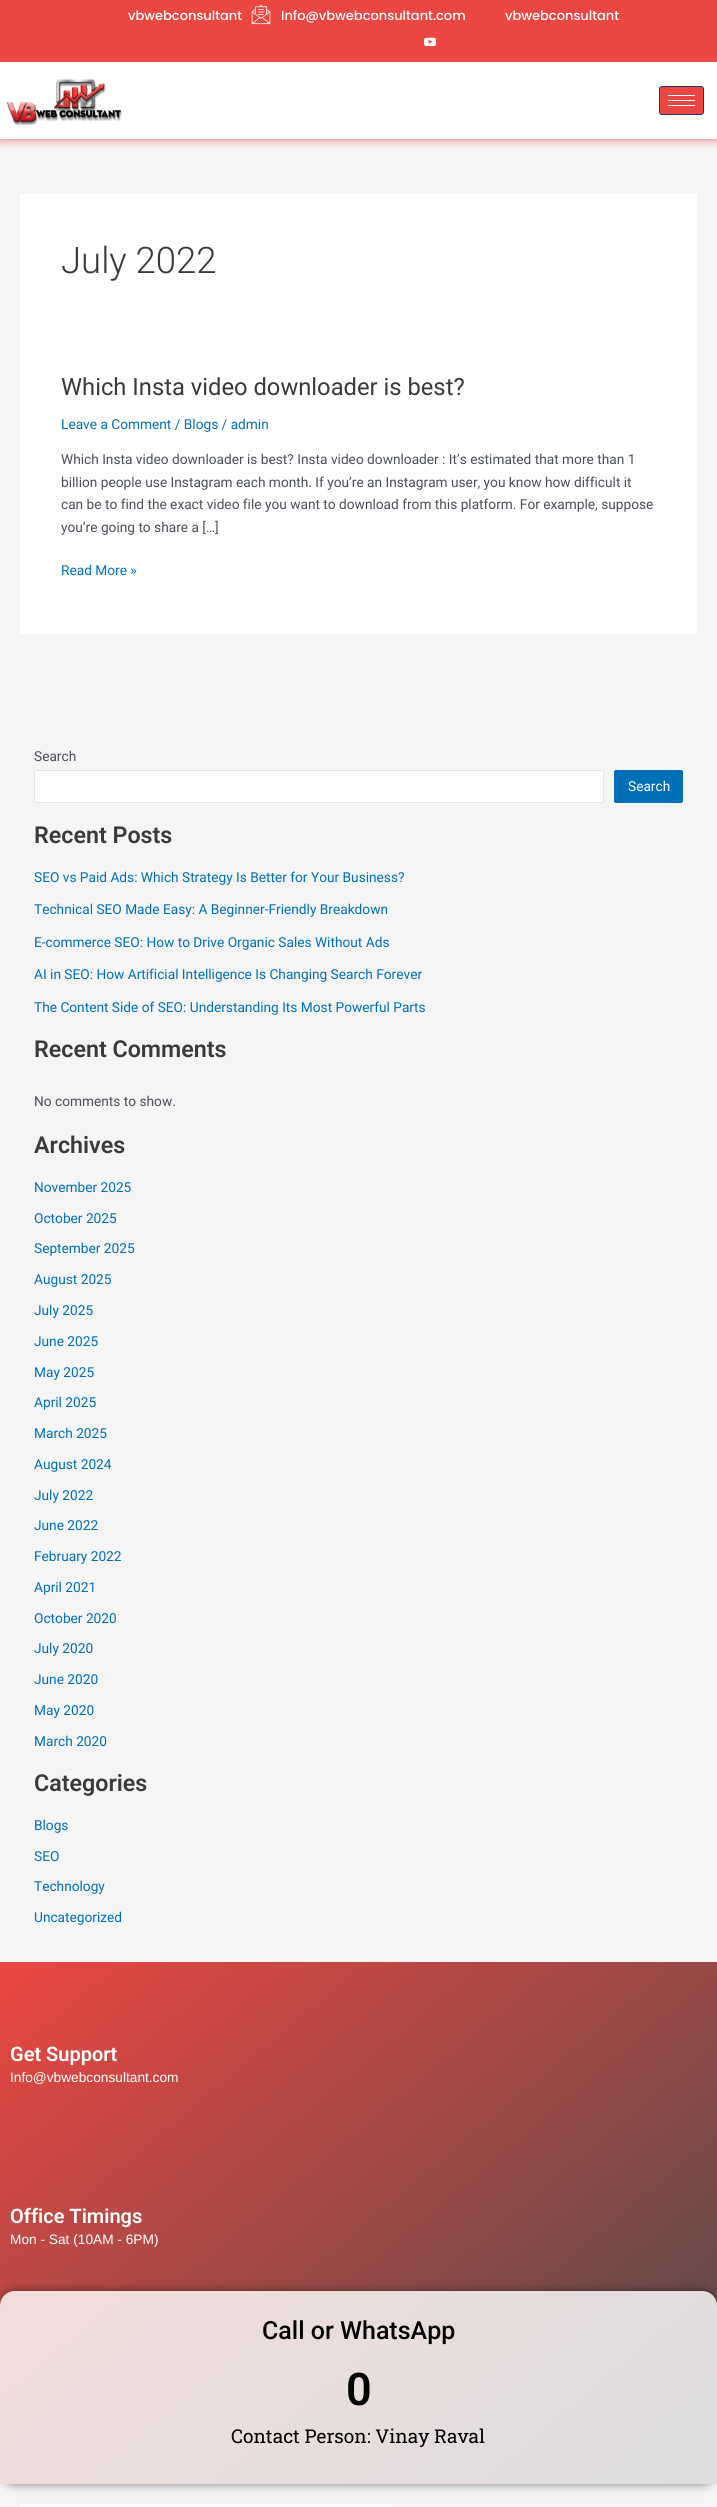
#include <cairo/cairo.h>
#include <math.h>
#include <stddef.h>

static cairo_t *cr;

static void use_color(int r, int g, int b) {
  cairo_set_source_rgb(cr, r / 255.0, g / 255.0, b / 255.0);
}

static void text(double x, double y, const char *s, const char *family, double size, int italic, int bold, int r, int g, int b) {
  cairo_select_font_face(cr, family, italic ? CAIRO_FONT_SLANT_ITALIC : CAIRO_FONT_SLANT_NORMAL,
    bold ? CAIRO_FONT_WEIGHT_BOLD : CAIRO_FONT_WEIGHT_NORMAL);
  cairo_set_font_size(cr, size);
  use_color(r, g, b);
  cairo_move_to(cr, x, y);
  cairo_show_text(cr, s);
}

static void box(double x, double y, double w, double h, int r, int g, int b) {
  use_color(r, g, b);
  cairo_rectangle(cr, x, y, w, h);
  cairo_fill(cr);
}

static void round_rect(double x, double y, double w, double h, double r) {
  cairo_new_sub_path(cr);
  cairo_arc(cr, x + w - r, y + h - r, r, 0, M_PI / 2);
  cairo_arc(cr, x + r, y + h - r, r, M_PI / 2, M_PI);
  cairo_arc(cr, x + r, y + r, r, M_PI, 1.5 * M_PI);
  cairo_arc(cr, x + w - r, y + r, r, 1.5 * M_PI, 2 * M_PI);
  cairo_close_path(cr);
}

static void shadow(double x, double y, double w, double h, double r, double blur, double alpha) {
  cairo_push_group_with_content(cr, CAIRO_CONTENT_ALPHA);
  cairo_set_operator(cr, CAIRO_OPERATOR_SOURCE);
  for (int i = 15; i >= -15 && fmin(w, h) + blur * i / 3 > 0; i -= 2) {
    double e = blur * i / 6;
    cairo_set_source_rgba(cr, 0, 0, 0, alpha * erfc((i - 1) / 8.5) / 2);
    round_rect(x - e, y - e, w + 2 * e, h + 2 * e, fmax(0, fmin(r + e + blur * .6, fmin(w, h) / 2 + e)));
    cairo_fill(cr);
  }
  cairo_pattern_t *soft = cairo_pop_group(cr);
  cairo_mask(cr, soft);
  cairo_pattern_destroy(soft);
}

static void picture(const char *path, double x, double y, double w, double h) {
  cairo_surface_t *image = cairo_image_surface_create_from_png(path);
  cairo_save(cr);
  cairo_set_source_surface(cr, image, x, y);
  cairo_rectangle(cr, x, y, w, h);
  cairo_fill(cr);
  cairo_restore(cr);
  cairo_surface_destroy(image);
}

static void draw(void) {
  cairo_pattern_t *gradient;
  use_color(245, 245, 245);
  cairo_paint(cr);
  use_color(235, 70, 65);
  shadow(0, 0, 717, 139, 0, 5, 0.41);
  box(0, 0, 717, 62, 235, 70, 65);
  picture("img_01.png", 251, 5, 20, 20);
  picture("img_02.png", 424, 37, 12, 10);
  use_color(235, 70, 65);
  shadow(0, 62, 717, 77, 0, 5, 0.49);
  box(0, 62, 717, 77, 255, 255, 255);
  picture("img_03.png", 7, 79, 116, 47);
  use_color(235, 70, 65);
  round_rect(659.5, 86.5, 44, 28, 2.5);
  cairo_fill_preserve(cr);
  use_color(39, 49, 113);
  cairo_set_line_width(cr, 1);
  cairo_stroke(cr);
  box(668, 95, 27, 1, 255, 255, 255);
  box(668, 100, 27, 1, 255, 255, 255);
  box(668, 105, 27, 1, 255, 255, 255);
  box(20, 194, 677, 440, 255, 255, 255);
  round_rect(34.5, 770.5, 569, 32, 1.5);
  cairo_fill_preserve(cr);
  use_color(229, 229, 229);
  cairo_stroke(cr);
  use_color(1, 112, 185);
  round_rect(614, 770, 69, 33, 2);
  cairo_fill(cr);
  gradient = cairo_pattern_create_linear(82, 1893, 635, 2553);
  cairo_pattern_add_color_stop_rgba(gradient, 0, 0.922, 0.275, 0.255, 1);
  cairo_pattern_add_color_stop_rgba(gradient, 1, 0.298, 0.298, 0.298, 1);
  cairo_set_source(cr, gradient);
  cairo_pattern_destroy(gradient);
  cairo_rectangle(cr, 0, 1962, 717, 522);
  cairo_fill(cr);
  cairo_save(cr);
  cairo_set_fill_rule(cr, CAIRO_FILL_RULE_EVEN_ODD);
  cairo_new_path(cr);
  cairo_move_to(cr, 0, 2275);
  cairo_line_to(cr, 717, 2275);
  cairo_line_to(cr, 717, 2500);
  cairo_line_to(cr, 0, 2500);
  cairo_close_path(cr);
  cairo_move_to(cr, 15, 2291);
  cairo_line_to(cr, 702, 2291);
  cairo_curve_to(cr, 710.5, 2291, 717, 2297.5, 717, 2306);
  cairo_line_to(cr, 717, 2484);
  cairo_line_to(cr, 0, 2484);
  cairo_line_to(cr, 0, 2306);
  cairo_curve_to(cr, 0, 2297.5, 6.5, 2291, 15, 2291);
  cairo_close_path(cr);
  cairo_clip(cr);
  use_color(0, 0, 0);
  shadow(0, 2291, 717, 193, 15, 5, 0.5);
  cairo_restore(cr);
  cairo_set_source_rgba(cr, 1, 1, 1, 0.81);
  cairo_new_path(cr);
  cairo_move_to(cr, 15, 2291);
  cairo_line_to(cr, 702, 2291);
  cairo_curve_to(cr, 710.5, 2291, 717, 2297.5, 717, 2306);
  cairo_line_to(cr, 717, 2484);
  cairo_line_to(cr, 0, 2484);
  cairo_line_to(cr, 0, 2306);
  cairo_curve_to(cr, 0, 2297.5, 6.5, 2291, 15, 2291);
  cairo_close_path(cr);
  cairo_fill(cr);
  box(20, 2504, 372, 3, 255, 255, 255);
  text(128, 20, "vbwebconsultant", "Poppins Medium", 13, 0, 0, 255, 255, 255);
  text(281, 20, "Info@vbwebconsultant.com", "Poppins Medium", 13, 0, 0, 255, 255, 255);
  text(505, 20, "vbwebconsultant", "Poppins Medium", 13, 0, 0, 255, 255, 255);
  text(61, 273, "July 2022", "Roboto Light", 36.5, 0, 0, 58, 58, 58);
  text(61, 395, "Which Insta video downloader is best?", "Roboto", 23.75, 0, 0, 58, 58, 58);
  text(61, 429, "Leave a Comment / Blogs / admin", "Roboto", 13.7, 0, 0, 1, 112, 185);
  text(61, 464, "Which Insta video downloader is best? Insta video downloader : It’s estimated that more than 1", "Roboto", 13.7, 0, 0, 75, 79, 88);
  text(61, 487, "billion people use Instagram each month. If you’re an Instagram user, you know how difficult it", "Roboto", 13.7, 0, 0, 75, 79, 88);
  text(61, 509, "can be to find the exact video file you want to download from this platform. For example, suppose", "Roboto", 13.7, 0, 0, 75, 79, 88);
  text(61, 532, "you’re going to share a […]", "Roboto", 13.7, 0, 0, 75, 79, 88);
  text(61, 575, "Read More »", "Roboto", 13.7, 0, 0, 1, 112, 185);
  text(34, 761, "Search", "Roboto", 13.7, 0, 0, 75, 79, 88);
  text(628, 791, "Search", "Roboto", 13.7, 0, 0, 255, 255, 255);
  text(34, 843, "Recent Posts", "Roboto SemiBold", 23.25, 0, 0, 58, 58, 58);
  text(34, 882, "SEO vs Paid Ads: Which Strategy Is Better for Your Business?", "Roboto", 13.7, 0, 0, 1, 112, 185);
  text(34, 914, "Technical SEO Made Easy: A Beginner-Friendly Breakdown", "Roboto", 13.7, 0, 0, 1, 112, 185);
  text(34, 947, "E-commerce SEO: How to Drive Organic Sales Without Ads", "Roboto", 13.7, 0, 0, 1, 112, 185);
  text(34, 979, "AI in SEO: How Artificial Intelligence Is Changing Search Forever", "Roboto", 13.7, 0, 0, 1, 112, 185);
  text(34, 1012, "The Content Side of SEO: Understanding Its Most Powerful Parts", "Roboto", 13.7, 0, 0, 1, 112, 185);
  text(34, 1057, "Recent Comments", "Roboto SemiBold", 23.25, 0, 0, 58, 58, 58);
  text(34, 1106, "No comments to show.", "Roboto", 13.7, 0, 0, 75, 79, 88);
  text(34, 1153, "Archives", "Roboto SemiBold", 23.25, 0, 0, 58, 58, 58);
  text(34, 1192, "November 2025", "Roboto", 13.7, 0, 0, 1, 112, 185);
  text(34, 1223, "October 2025", "Roboto", 13.7, 0, 0, 1, 112, 185);
  text(34, 1253, "September 2025", "Roboto", 13.7, 0, 0, 1, 112, 185);
  text(34, 1284, "August 2025", "Roboto", 13.7, 0, 0, 1, 112, 185);
  text(34, 1315, "July 2025", "Roboto", 13.7, 0, 0, 1, 112, 185);
  text(34, 1346, "June 2025", "Roboto", 13.7, 0, 0, 1, 112, 185);
  text(34, 1377, "May 2025", "Roboto", 13.7, 0, 0, 1, 112, 185);
  text(34, 1407, "April 2025", "Roboto", 13.7, 0, 0, 1, 112, 185);
  text(34, 1438, "March 2025", "Roboto", 13.7, 0, 0, 1, 112, 185);
  text(34, 1469, "August 2024", "Roboto", 13.7, 0, 0, 1, 112, 185);
  text(34, 1500, "July 2022", "Roboto", 13.7, 0, 0, 1, 112, 185);
  text(34, 1530, "June 2022", "Roboto", 13.7, 0, 0, 1, 112, 185);
  text(34, 1561, "February 2022", "Roboto", 13.7, 0, 0, 1, 112, 185);
  text(34, 1592, "April 2021", "Roboto", 13.7, 0, 0, 1, 112, 185);
  text(34, 1623, "October 2020", "Roboto", 13.7, 0, 0, 1, 112, 185);
  text(34, 1653, "July 2020", "Roboto", 13.7, 0, 0, 1, 112, 185);
  text(34, 1684, "June 2020", "Roboto", 13.7, 0, 0, 1, 112, 185);
  text(34, 1715, "May 2020", "Roboto", 13.7, 0, 0, 1, 112, 185);
  text(34, 1746, "March 2020", "Roboto", 13.7, 0, 0, 1, 112, 185);
  text(34, 1791, "Categories", "Roboto SemiBold", 23.25, 0, 0, 58, 58, 58);
  text(34, 1830, "Blogs", "Roboto", 13.7, 0, 0, 1, 112, 185);
  text(34, 1861, "SEO", "Roboto", 13.7, 0, 0, 1, 112, 185);
  text(34, 1891, "Technology", "Roboto", 13.7, 0, 0, 1, 112, 185);
  text(34, 1922, "Uncategorized", "Roboto", 13.7, 0, 0, 1, 112, 185);
  text(10, 2061, "Get Support", "Roboto SemiBold", 20, 0, 0, 255, 255, 255);
  text(10, 2082, "Info@vbwebconsultant.com", "Liberation Sans", 13.7, 0, 0, 255, 255, 255);
  text(10, 2223, "Office Timings", "Roboto SemiBold", 20, 0, 0, 255, 255, 255);
  text(10, 2244, "Mon - Sat (10AM - 6PM)", "Liberation Sans", 13.7, 0, 0, 255, 255, 255);
  text(262, 2339, "Call or WhatsApp", "Roboto Medium", 25, 0, 0, 0, 0, 0);
  text(346, 2405, "0", "Roboto SemiBold", 45, 0, 0, 0, 0, 0);
  text(231, 2443, "Contact Person: Vinay Raval", "Roboto Slab", 19, 0, 0, 0, 0, 0);
}

int main(void) {
  cairo_surface_t *surface = cairo_image_surface_create(CAIRO_FORMAT_RGB24, 717, 2507);
  cr = cairo_create(surface);
  cairo_font_options_t *options = cairo_font_options_create();
  cairo_font_options_set_hint_metrics(options, CAIRO_HINT_METRICS_OFF);
  cairo_font_options_set_hint_style(options, CAIRO_HINT_STYLE_NONE);
  cairo_set_font_options(cr, options);
  cairo_set_miter_limit(cr, 4);
  draw();
  cairo_surface_write_to_png(surface, "out.png");
  cairo_font_options_destroy(options);
  cairo_destroy(cr);
  cairo_surface_destroy(surface);
  return 0;
}
